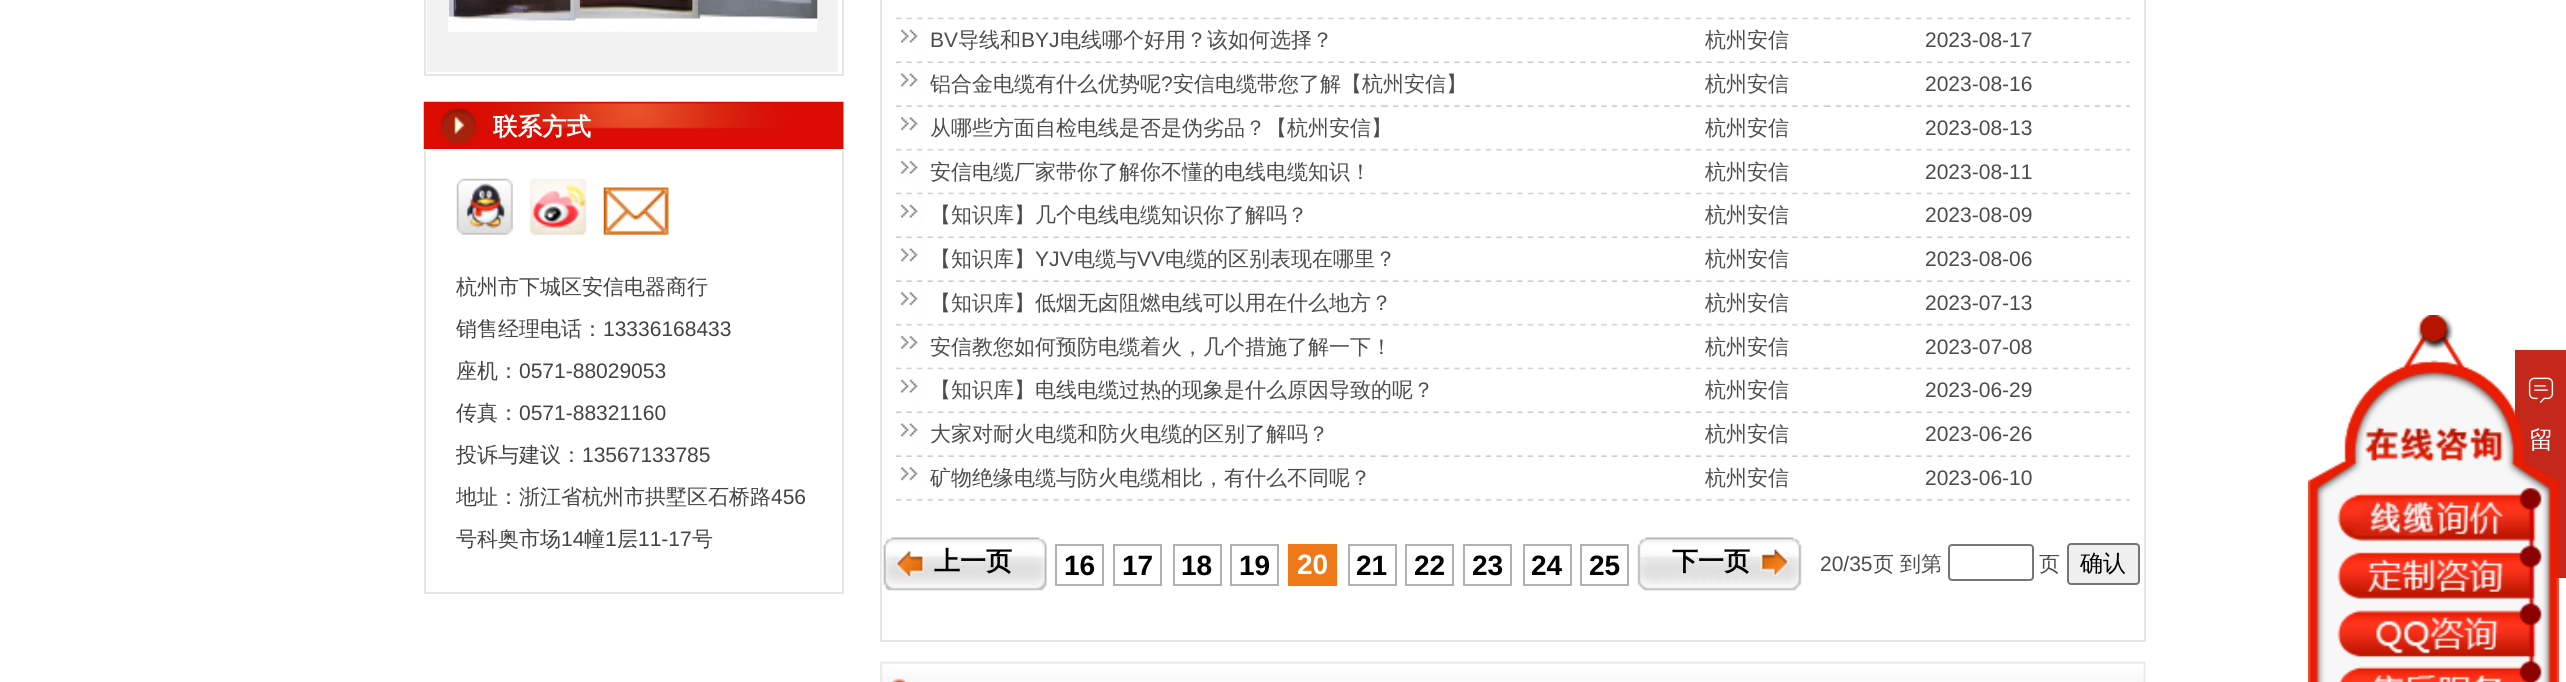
#include <cairo/cairo.h>
#include <math.h>
#include <stddef.h>

static cairo_t *cr;

static void use_color(int r, int g, int b) {
  cairo_set_source_rgb(cr, r / 255.0, g / 255.0, b / 255.0);
}

static void text(double x, double y, const char *s, const char *family, double size, int italic, int bold, int r, int g, int b) {
  cairo_select_font_face(cr, family, italic ? CAIRO_FONT_SLANT_ITALIC : CAIRO_FONT_SLANT_NORMAL,
    bold ? CAIRO_FONT_WEIGHT_BOLD : CAIRO_FONT_WEIGHT_NORMAL);
  cairo_set_font_size(cr, size);
  use_color(r, g, b);
  cairo_move_to(cr, x, y);
  cairo_show_text(cr, s);
}

static void box(double x, double y, double w, double h, int r, int g, int b) {
  use_color(r, g, b);
  cairo_rectangle(cr, x, y, w, h);
  cairo_fill(cr);
}

static void round_rect(double x, double y, double w, double h, double r) {
  cairo_new_sub_path(cr);
  cairo_arc(cr, x + w - r, y + h - r, r, 0, M_PI / 2);
  cairo_arc(cr, x + r, y + h - r, r, M_PI / 2, M_PI);
  cairo_arc(cr, x + r, y + r, r, M_PI, 1.5 * M_PI);
  cairo_arc(cr, x + w - r, y + r, r, 1.5 * M_PI, 2 * M_PI);
  cairo_close_path(cr);
}

static void picture(const char *path, double x, double y, double w, double h) {
  cairo_surface_t *image = cairo_image_surface_create_from_png(path);
  cairo_save(cr);
  cairo_set_source_surface(cr, image, x, y);
  cairo_rectangle(cr, x, y, w, h);
  cairo_fill(cr);
  cairo_restore(cr);
  cairo_surface_destroy(image);
}

static void draw(void) {
  use_color(255, 255, 255);
  cairo_paint(cr);
  box(842, 0, 2, 75, 230, 230, 230);
  box(424, 74, 420, 2, 230, 230, 230);
  box(424, 0, 2, 75, 230, 230, 230);
  box(427, 0, 411, 72, 242, 242, 242);
  picture("img_01.png", 448, 0, 370, 32);
  picture("img_02.png", 423, 101, 421, 48);
  box(842, 151, 2, 442, 230, 230, 230);
  box(424, 592, 420, 2, 230, 230, 230);
  box(424, 151, 2, 442, 230, 230, 230);
  picture("img_03.png", 456, 178, 57, 57);
  picture("img_04.png", 530, 178, 57, 57);
  picture("img_05.png", 603, 187, 66, 48);
  cairo_rectangle(cr, 881, -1, 1264, 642);
  cairo_stroke(cr);
  picture("img_06.png", 896, 17, 1234, 3);
  picture("img_07.png", 896, 19, 1234, 45);
  picture("img_08.png", 896, 63, 1234, 44);
  picture("img_09.png", 896, 117, 1234, 34);
  picture("img_10.png", 896, 150, 1234, 45);
  picture("img_07.png", 896, 194, 1234, 45);
  picture("img_08.png", 896, 238, 1234, 44);
  picture("img_09.png", 896, 292, 1234, 34);
  picture("img_10.png", 896, 325, 1234, 45);
  picture("img_07.png", 896, 369, 1234, 45);
  picture("img_08.png", 896, 413, 1234, 44);
  picture("img_09.png", 896, 467, 1234, 34);
  picture("img_11.png", 883, 537, 164, 54);
  cairo_rectangle(cr, 1056, 545, 47, 40);
  use_color(177, 177, 177);
  cairo_stroke(cr);
  cairo_rectangle(cr, 1114, 545, 47, 40);
  cairo_stroke(cr);
  cairo_rectangle(cr, 1174, 545, 47, 40);
  cairo_stroke(cr);
  cairo_rectangle(cr, 1231, 545, 47, 40);
  cairo_stroke(cr);
  box(1288, 544, 49, 42, 239, 121, 25);
  cairo_rectangle(cr, 1349, 545, 47, 40);
  use_color(177, 177, 177);
  cairo_stroke(cr);
  cairo_rectangle(cr, 1406, 545, 47, 40);
  cairo_stroke(cr);
  cairo_rectangle(cr, 1464, 545, 47, 40);
  cairo_stroke(cr);
  cairo_rectangle(cr, 1524, 545, 47, 40);
  cairo_stroke(cr);
  cairo_rectangle(cr, 1581, 545, 47, 40);
  cairo_stroke(cr);
  picture("img_12.png", 1637, 537, 165, 54);
  round_rect(1949, 545, 84, 35, 3);
  use_color(118, 118, 118);
  cairo_stroke(cr);
  use_color(239, 239, 239);
  round_rect(2068, 544, 71, 40, 3);
  cairo_fill_preserve(cr);
  use_color(118, 118, 118);
  cairo_stroke(cr);
  picture("img_13.png", 880, 661, 1266, 21);
  box(2515, 350, 51, 228, 195, 40, 27);
  picture("img_14.png", 2528, 377, 26, 26);
  text(493, 135, "联系方式", "WenQuanYi Zen Hei", 24.5, 0, 1, 255, 255, 255);
  text(456, 294, "杭州市下城区安信电器商行", "WenQuanYi Zen Hei Medium", 21, 0, 0, 67, 67, 67);
  text(456, 336, "销售经理电话：", "WenQuanYi Zen Hei Medium", 21, 0, 0, 67, 67, 67);
  text(603, 336, "13336168433", "Liberation Sans", 21, 0, 0, 67, 67, 67);
  text(456, 378, "座机：", "WenQuanYi Zen Hei Medium", 21, 0, 0, 67, 67, 67);
  text(519, 378, "0571-88029053", "Liberation Sans", 21, 0, 0, 67, 67, 67);
  text(456, 420, "传真：", "WenQuanYi Zen Hei Medium", 21, 0, 0, 67, 67, 67);
  text(519, 420, "0571-88321160", "Liberation Sans", 21, 0, 0, 67, 67, 67);
  text(456, 462, "投诉与建议：", "WenQuanYi Zen Hei Medium", 21, 0, 0, 67, 67, 67);
  text(582, 462, "13567133785", "Liberation Sans", 21, 0, 0, 67, 67, 67);
  text(456, 504, "地址：浙江省杭州市拱墅区石桥路", "WenQuanYi Zen Hei Medium", 21, 0, 0, 67, 67, 67);
  text(771, 504, "456", "Liberation Sans", 21, 0, 0, 67, 67, 67);
  text(456, 546, "号科奥市场", "WenQuanYi Zen Hei Medium", 21, 0, 0, 67, 67, 67);
  text(561, 546, "14", "Liberation Sans", 21, 0, 0, 67, 67, 67);
  text(584, 546, "幢", "WenQuanYi Zen Hei Medium", 21, 0, 0, 67, 67, 67);
  text(605, 546, "1", "Liberation Sans", 21, 0, 0, 67, 67, 67);
  text(617, 546, "层", "WenQuanYi Zen Hei Medium", 21, 0, 0, 67, 67, 67);
  text(638, 546, "11-17", "Liberation Sans", 21, 0, 0, 67, 67, 67);
  text(692, 546, "号", "WenQuanYi Zen Hei Medium", 21, 0, 0, 67, 67, 67);
  text(930, 47, "BV", "Liberation Sans", 21, 0, 0, 76, 76, 76);
  text(958, 47, "导线和", "WenQuanYi Zen Hei Medium", 21, 0, 0, 76, 76, 76);
  text(1021, 47, "BYJ", "Liberation Sans", 21, 0, 0, 76, 76, 76);
  text(1060, 47, "电线哪个好用？该如何选择？", "WenQuanYi Zen Hei Medium", 21, 0, 0, 76, 76, 76);
  text(1705, 47, "杭州安信", "WenQuanYi Zen Hei Medium", 21, 0, 0, 76, 76, 76);
  text(1925, 47, "2023-08-17", "Liberation Sans", 21, 0, 0, 76, 76, 76);
  text(930, 91, "铝合金电缆有什么优势呢", "WenQuanYi Zen Hei Medium", 21, 0, 0, 76, 76, 76);
  text(1161, 91, "?", "Liberation Sans", 21, 0, 0, 76, 76, 76);
  text(1173, 91, "安信电缆带您了解【杭州安信】", "WenQuanYi Zen Hei Medium", 21, 0, 0, 76, 76, 76);
  text(1705, 91, "杭州安信", "WenQuanYi Zen Hei Medium", 21, 0, 0, 76, 76, 76);
  text(1925, 91, "2023-08-16", "Liberation Sans", 21, 0, 0, 76, 76, 76);
  text(930, 135, "从哪些方面自检电线是否是伪劣品？【杭州安信】", "WenQuanYi Zen Hei Medium", 21, 0, 0, 76, 76, 76);
  text(1705, 135, "杭州安信", "WenQuanYi Zen Hei Medium", 21, 0, 0, 76, 76, 76);
  text(1925, 135, "2023-08-13", "Liberation Sans", 21, 0, 0, 76, 76, 76);
  text(930, 179, "安信电缆厂家带你了解你不懂的电线电缆知识！", "WenQuanYi Zen Hei Medium", 21, 0, 0, 76, 76, 76);
  text(1705, 179, "杭州安信", "WenQuanYi Zen Hei Medium", 21, 0, 0, 76, 76, 76);
  text(1925, 179, "2023-08-11", "Liberation Sans", 21, 0, 0, 76, 76, 76);
  text(930, 222, "【知识库】几个电线电缆知识你了解吗？", "WenQuanYi Zen Hei Medium", 21, 0, 0, 76, 76, 76);
  text(1705, 222, "杭州安信", "WenQuanYi Zen Hei Medium", 21, 0, 0, 76, 76, 76);
  text(1925, 222, "2023-08-09", "Liberation Sans", 21, 0, 0, 76, 76, 76);
  text(930, 266, "【知识库】", "WenQuanYi Zen Hei Medium", 21, 0, 0, 76, 76, 76);
  text(1035, 266, "YJV", "Liberation Sans", 21, 0, 0, 76, 76, 76);
  text(1074, 266, "电缆与", "WenQuanYi Zen Hei Medium", 21, 0, 0, 76, 76, 76);
  text(1137, 266, "VV", "Liberation Sans", 21, 0, 0, 76, 76, 76);
  text(1165, 266, "电缆的区别表现在哪里？", "WenQuanYi Zen Hei Medium", 21, 0, 0, 76, 76, 76);
  text(1705, 266, "杭州安信", "WenQuanYi Zen Hei Medium", 21, 0, 0, 76, 76, 76);
  text(1925, 266, "2023-08-06", "Liberation Sans", 21, 0, 0, 76, 76, 76);
  text(930, 310, "【知识库】低烟无卤阻燃电线可以用在什么地方？", "WenQuanYi Zen Hei Medium", 21, 0, 0, 76, 76, 76);
  text(1705, 310, "杭州安信", "WenQuanYi Zen Hei Medium", 21, 0, 0, 76, 76, 76);
  text(1925, 310, "2023-07-13", "Liberation Sans", 21, 0, 0, 76, 76, 76);
  text(930, 354, "安信教您如何预防电缆着火，几个措施了解一下！", "WenQuanYi Zen Hei Medium", 21, 0, 0, 76, 76, 76);
  text(1705, 354, "杭州安信", "WenQuanYi Zen Hei Medium", 21, 0, 0, 76, 76, 76);
  text(1925, 354, "2023-07-08", "Liberation Sans", 21, 0, 0, 76, 76, 76);
  text(930, 397, "【知识库】电线电缆过热的现象是什么原因导致的呢？", "WenQuanYi Zen Hei Medium", 21, 0, 0, 76, 76, 76);
  text(1705, 397, "杭州安信", "WenQuanYi Zen Hei Medium", 21, 0, 0, 76, 76, 76);
  text(1925, 397, "2023-06-29", "Liberation Sans", 21, 0, 0, 76, 76, 76);
  text(930, 441, "大家对耐火电缆和防火电缆的区别了解吗？", "WenQuanYi Zen Hei Medium", 21, 0, 0, 76, 76, 76);
  text(1705, 441, "杭州安信", "WenQuanYi Zen Hei Medium", 21, 0, 0, 76, 76, 76);
  text(1925, 441, "2023-06-26", "Liberation Sans", 21, 0, 0, 76, 76, 76);
  text(930, 485, "矿物绝缘电缆与防火电缆相比，有什么不同呢？", "WenQuanYi Zen Hei Medium", 21, 0, 0, 76, 76, 76);
  text(1705, 485, "杭州安信", "WenQuanYi Zen Hei Medium", 21, 0, 0, 76, 76, 76);
  text(1925, 485, "2023-06-10", "Liberation Sans", 21, 0, 0, 76, 76, 76);
  text(934, 570, "上一页", "WenQuanYi Zen Hei", 26, 0, 1, 0, 0, 0);
  text(1064, 575, "16", "Liberation Sans", 28, 0, 1, 0, 0, 0);
  text(1122, 575, "17", "Liberation Sans", 28, 0, 1, 0, 0, 0);
  text(1181, 575, "18", "Liberation Sans", 28, 0, 1, 0, 0, 0);
  text(1239, 575, "19", "Liberation Sans", 28, 0, 1, 0, 0, 0);
  text(1297, 574, "20", "Liberation Sans", 28, 0, 1, 255, 255, 255);
  text(1356, 575, "21", "Liberation Sans", 28, 0, 1, 0, 0, 0);
  text(1414, 575, "22", "Liberation Sans", 28, 0, 1, 0, 0, 0);
  text(1472, 575, "23", "Liberation Sans", 28, 0, 1, 0, 0, 0);
  text(1531, 575, "24", "Liberation Sans", 28, 0, 1, 0, 0, 0);
  text(1589, 575, "25", "Liberation Sans", 28, 0, 1, 0, 0, 0);
  text(1672, 570, "下一页", "WenQuanYi Zen Hei", 26, 0, 1, 0, 0, 0);
  text(1820, 571, "20/35", "Liberation Sans", 21, 0, 0, 76, 76, 76);
  text(1873, 571, "页", "WenQuanYi Zen Hei Medium", 21, 0, 0, 76, 76, 76);
  text(1900, 571, "到第", "WenQuanYi Zen Hei Medium", 21, 0, 0, 76, 76, 76);
  text(2039, 571, "页", "WenQuanYi Zen Hei Medium", 21, 0, 0, 76, 76, 76);
  text(2080, 571, "确认", "WenQuanYi Zen Hei Medium", 23, 0, 0, 0, 0, 0);
  text(2529, 448, "留", "WenQuanYi Zen Hei Medium", 24.5, 0, 0, 255, 255, 255);
  picture("img_15.png", 2308, 315, 251, 367);
}

int main(void) {
  cairo_surface_t *surface = cairo_image_surface_create(CAIRO_FORMAT_RGB24, 2566, 682);
  cr = cairo_create(surface);
  cairo_font_options_t *options = cairo_font_options_create();
  cairo_font_options_set_hint_metrics(options, CAIRO_HINT_METRICS_OFF);
  cairo_font_options_set_hint_style(options, CAIRO_HINT_STYLE_NONE);
  cairo_set_font_options(cr, options);
  cairo_set_miter_limit(cr, 4);
  draw();
  cairo_surface_write_to_png(surface, "out.png");
  cairo_font_options_destroy(options);
  cairo_destroy(cr);
  cairo_surface_destroy(surface);
  return 0;
}
